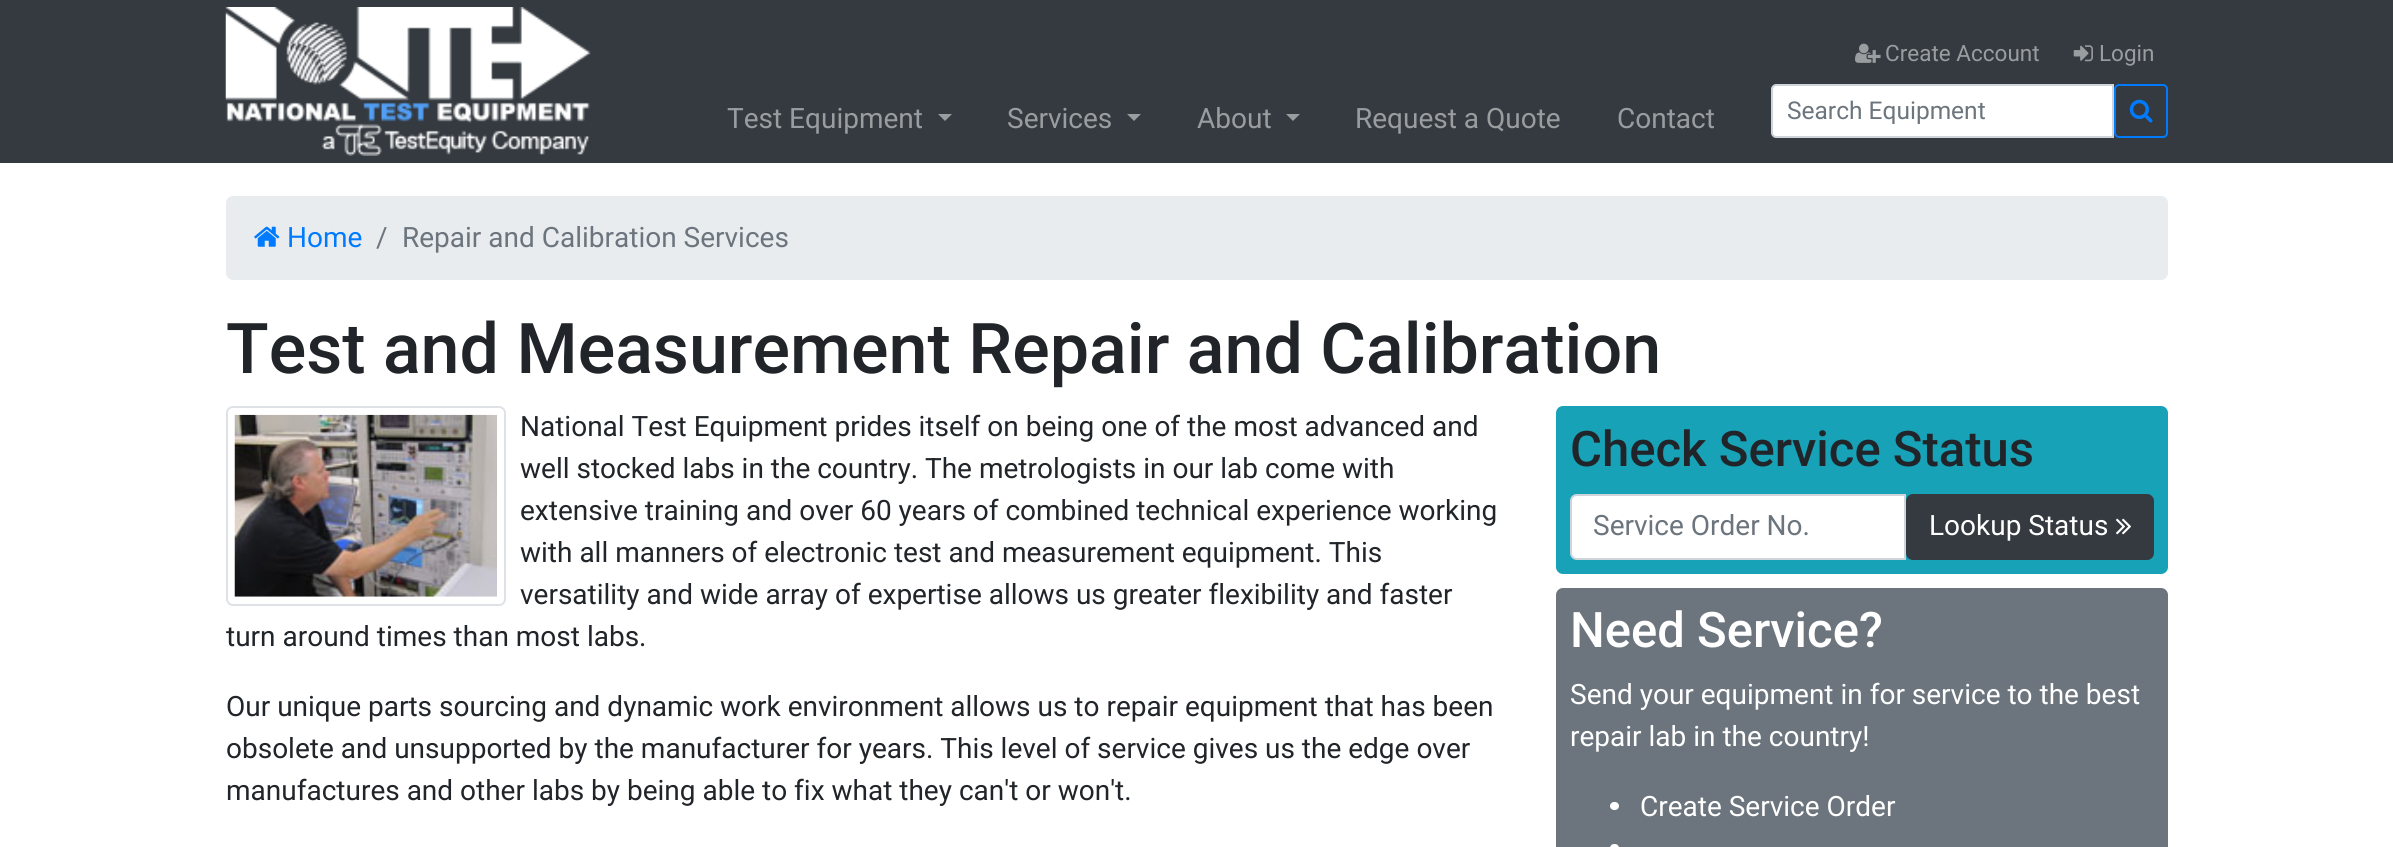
#include <cairo/cairo.h>
#include <math.h>
#include <stddef.h>

static cairo_t *cr;

static void use_color(int r, int g, int b) {
  cairo_set_source_rgb(cr, r / 255.0, g / 255.0, b / 255.0);
}

static void text(double x, double y, const char *s, const char *family, double size, int italic, int bold, int r, int g, int b) {
  cairo_select_font_face(cr, family, italic ? CAIRO_FONT_SLANT_ITALIC : CAIRO_FONT_SLANT_NORMAL,
    bold ? CAIRO_FONT_WEIGHT_BOLD : CAIRO_FONT_WEIGHT_NORMAL);
  cairo_set_font_size(cr, size);
  use_color(r, g, b);
  cairo_move_to(cr, x, y);
  cairo_show_text(cr, s);
}

static void box(double x, double y, double w, double h, int r, int g, int b) {
  use_color(r, g, b);
  cairo_rectangle(cr, x, y, w, h);
  cairo_fill(cr);
}

static void round_rect(double x, double y, double w, double h, double r) {
  cairo_new_sub_path(cr);
  cairo_arc(cr, x + w - r, y + h - r, r, 0, M_PI / 2);
  cairo_arc(cr, x + r, y + h - r, r, M_PI / 2, M_PI);
  cairo_arc(cr, x + r, y + r, r, M_PI, 1.5 * M_PI);
  cairo_arc(cr, x + w - r, y + r, r, 1.5 * M_PI, 2 * M_PI);
  cairo_close_path(cr);
}

static void picture(const char *path, double x, double y, double w, double h) {
  cairo_surface_t *image = cairo_image_surface_create_from_png(path);
  cairo_save(cr);
  cairo_set_source_surface(cr, image, x, y);
  cairo_rectangle(cr, x, y, w, h);
  cairo_fill(cr);
  cairo_restore(cr);
  cairo_surface_destroy(image);
}

static void draw(void) {
  use_color(255, 255, 255);
  cairo_paint(cr);
  box(0, 0, 2393, 163, 52, 58, 64);
  picture("img_01.png", 225, 7, 366, 149);
  picture("img_02.png", 1855, 43, 26, 20);
  picture("img_03.png", 2073, 45, 20, 17);
  use_color(154, 157, 160);
  cairo_new_path(cr);
  cairo_move_to(cr, 938, 114);
  cairo_line_to(cr, 952, 114);
  cairo_line_to(cr, 945, 121);
  cairo_close_path(cr);
  cairo_fill(cr);
  cairo_new_path(cr);
  cairo_move_to(cr, 1127, 114);
  cairo_line_to(cr, 1141, 114);
  cairo_line_to(cr, 1134, 121);
  cairo_close_path(cr);
  cairo_fill(cr);
  cairo_new_path(cr);
  cairo_move_to(cr, 1286, 114);
  cairo_line_to(cr, 1300, 114);
  cairo_line_to(cr, 1293, 121);
  cairo_close_path(cr);
  cairo_fill(cr);
  use_color(255, 255, 255);
  cairo_new_path(cr);
  cairo_move_to(cr, 1776, 85);
  cairo_line_to(cr, 2113, 85);
  cairo_line_to(cr, 2113, 137);
  cairo_line_to(cr, 1776, 137);
  cairo_curve_to(cr, 1774, 137, 1772, 135, 1772, 133);
  cairo_line_to(cr, 1772, 89);
  cairo_curve_to(cr, 1772, 87, 1774, 85, 1776, 85);
  cairo_close_path(cr);
  cairo_fill_preserve(cr);
  use_color(206, 212, 218);
  cairo_stroke(cr);
  round_rect(2115, 85, 52, 52, 4);
  use_color(0, 123, 255);
  cairo_stroke(cr);
  picture("img_04.png", 2129, 99, 24, 24);
  use_color(233, 236, 239);
  round_rect(226, 196, 1942, 84, 7);
  cairo_fill(cr);
  picture("img_05.png", 254, 226, 26, 21);
  round_rect(227, 407, 278, 198, 6);
  use_color(222, 226, 230);
  cairo_stroke(cr);
  picture("img_06.png", 234, 414, 263, 183);
  use_color(23, 162, 184);
  round_rect(1556, 406, 612, 168, 7);
  cairo_fill(cr);
  use_color(255, 255, 255);
  cairo_new_path(cr);
  cairo_move_to(cr, 1577, 495);
  cairo_line_to(cr, 1905, 495);
  cairo_line_to(cr, 1905, 559);
  cairo_line_to(cr, 1577, 559);
  cairo_curve_to(cr, 1573.5, 559, 1571, 556.5, 1571, 553);
  cairo_line_to(cr, 1571, 501);
  cairo_curve_to(cr, 1571, 497.5, 1573.5, 495, 1577, 495);
  cairo_close_path(cr);
  cairo_fill_preserve(cr);
  use_color(206, 212, 218);
  cairo_stroke(cr);
  use_color(52, 58, 64);
  round_rect(1907, 495, 246, 64, 6);
  cairo_fill_preserve(cr);
  cairo_stroke(cr);
  picture("img_07.png", 2116, 518, 15, 17);
  use_color(108, 117, 125);
  round_rect(1556, 588, 612, 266, 7);
  cairo_fill(cr);
  use_color(255, 255, 255);
  round_rect(1610, 802, 9, 8, 4);
  cairo_fill(cr);
  round_rect(1610, 844, 9, 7, 4);
  cairo_fill(cr);
  text(1885, 61, "Create Account", "Roboto", 22.5, 0, 0, 154, 157, 160);
  text(2099, 61, "Login", "Roboto", 22.5, 0, 0, 154, 157, 160);
  text(727, 128, "Test Equipment", "Roboto", 28, 0, 0, 154, 157, 160);
  text(1007, 128, "Services", "Roboto", 28, 0, 0, 154, 157, 160);
  text(1197, 128, "About", "Roboto", 28, 0, 0, 154, 157, 160);
  text(1355, 128, "Request a Quote", "Roboto", 28, 0, 0, 154, 157, 160);
  text(1617, 128, "Contact", "Roboto", 28, 0, 0, 154, 157, 160);
  text(1787, 119, "Search Equipment", "Roboto", 24.5, 0, 0, 108, 117, 125);
  text(287, 247, "Home", "Roboto", 28, 0, 0, 0, 123, 255);
  text(376, 247, "/", "Roboto", 28, 0, 0, 108, 117, 125);
  text(402, 247, "Repair and Calibration Services", "Roboto", 28, 0, 0, 108, 117, 125);
  text(226, 373, "Test and Measurement Repair and Calibration", "Roboto Medium", 70, 0, 0, 33, 37, 41);
  text(520, 436, "National Test Equipment prides itself on being one of the most advanced and", "Roboto", 28, 0, 0, 33, 37, 41);
  text(520, 478, "well stocked labs in the country. The metrologists in our lab come with", "Roboto", 28, 0, 0, 33, 37, 41);
  text(520, 520, "extensive training and over 60 years of combined technical experience working", "Roboto", 28, 0, 0, 33, 37, 41);
  text(520, 562, "with all manners of electronic test and measurement equipment. This", "Roboto", 28, 0, 0, 33, 37, 41);
  text(520, 604, "versatility and wide array of expertise allows us greater flexibility and faster", "Roboto", 28, 0, 0, 33, 37, 41);
  text(226, 646, "turn around times than most labs.", "Roboto", 28, 0, 0, 33, 37, 41);
  text(226, 716, "Our unique parts sourcing and dynamic work environment allows us to repair equipment that has been", "Roboto", 28, 0, 0, 33, 37, 41);
  text(226, 758, "obsolete and unsupported by the manufacturer for years. This level of service gives us the edge over", "Roboto", 28, 0, 0, 33, 37, 41);
  text(226, 800, "manufactures and other labs by being able to fix what they can't or won't.", "Roboto", 28, 0, 0, 33, 37, 41);
  text(1570, 466, "Check Service Status", "Roboto Medium", 49, 0, 0, 33, 37, 41);
  text(1593, 535, "Service Order No.", "Roboto", 28, 0, 0, 108, 117, 125);
  text(1929, 535, "Lookup Status", "Roboto", 28, 0, 0, 255, 255, 255);
  text(1570, 647, "Need Service?", "Roboto Medium", 49, 0, 0, 255, 255, 255);
  text(1570, 704, "Send your equipment in for service to the best", "Roboto", 28, 0, 0, 255, 255, 255);
  text(1570, 746, "repair lab in the country!", "Roboto", 28, 0, 0, 255, 255, 255);
  text(1640, 816, "Create Service Order", "Roboto", 28, 0, 0, 255, 255, 255);
}

int main(void) {
  cairo_surface_t *surface = cairo_image_surface_create(CAIRO_FORMAT_RGB24, 2393, 847);
  cr = cairo_create(surface);
  cairo_font_options_t *options = cairo_font_options_create();
  cairo_font_options_set_hint_metrics(options, CAIRO_HINT_METRICS_OFF);
  cairo_font_options_set_hint_style(options, CAIRO_HINT_STYLE_NONE);
  cairo_set_font_options(cr, options);
  cairo_set_miter_limit(cr, 4);
  draw();
  cairo_surface_write_to_png(surface, "out.png");
  cairo_font_options_destroy(options);
  cairo_destroy(cr);
  cairo_surface_destroy(surface);
  return 0;
}
